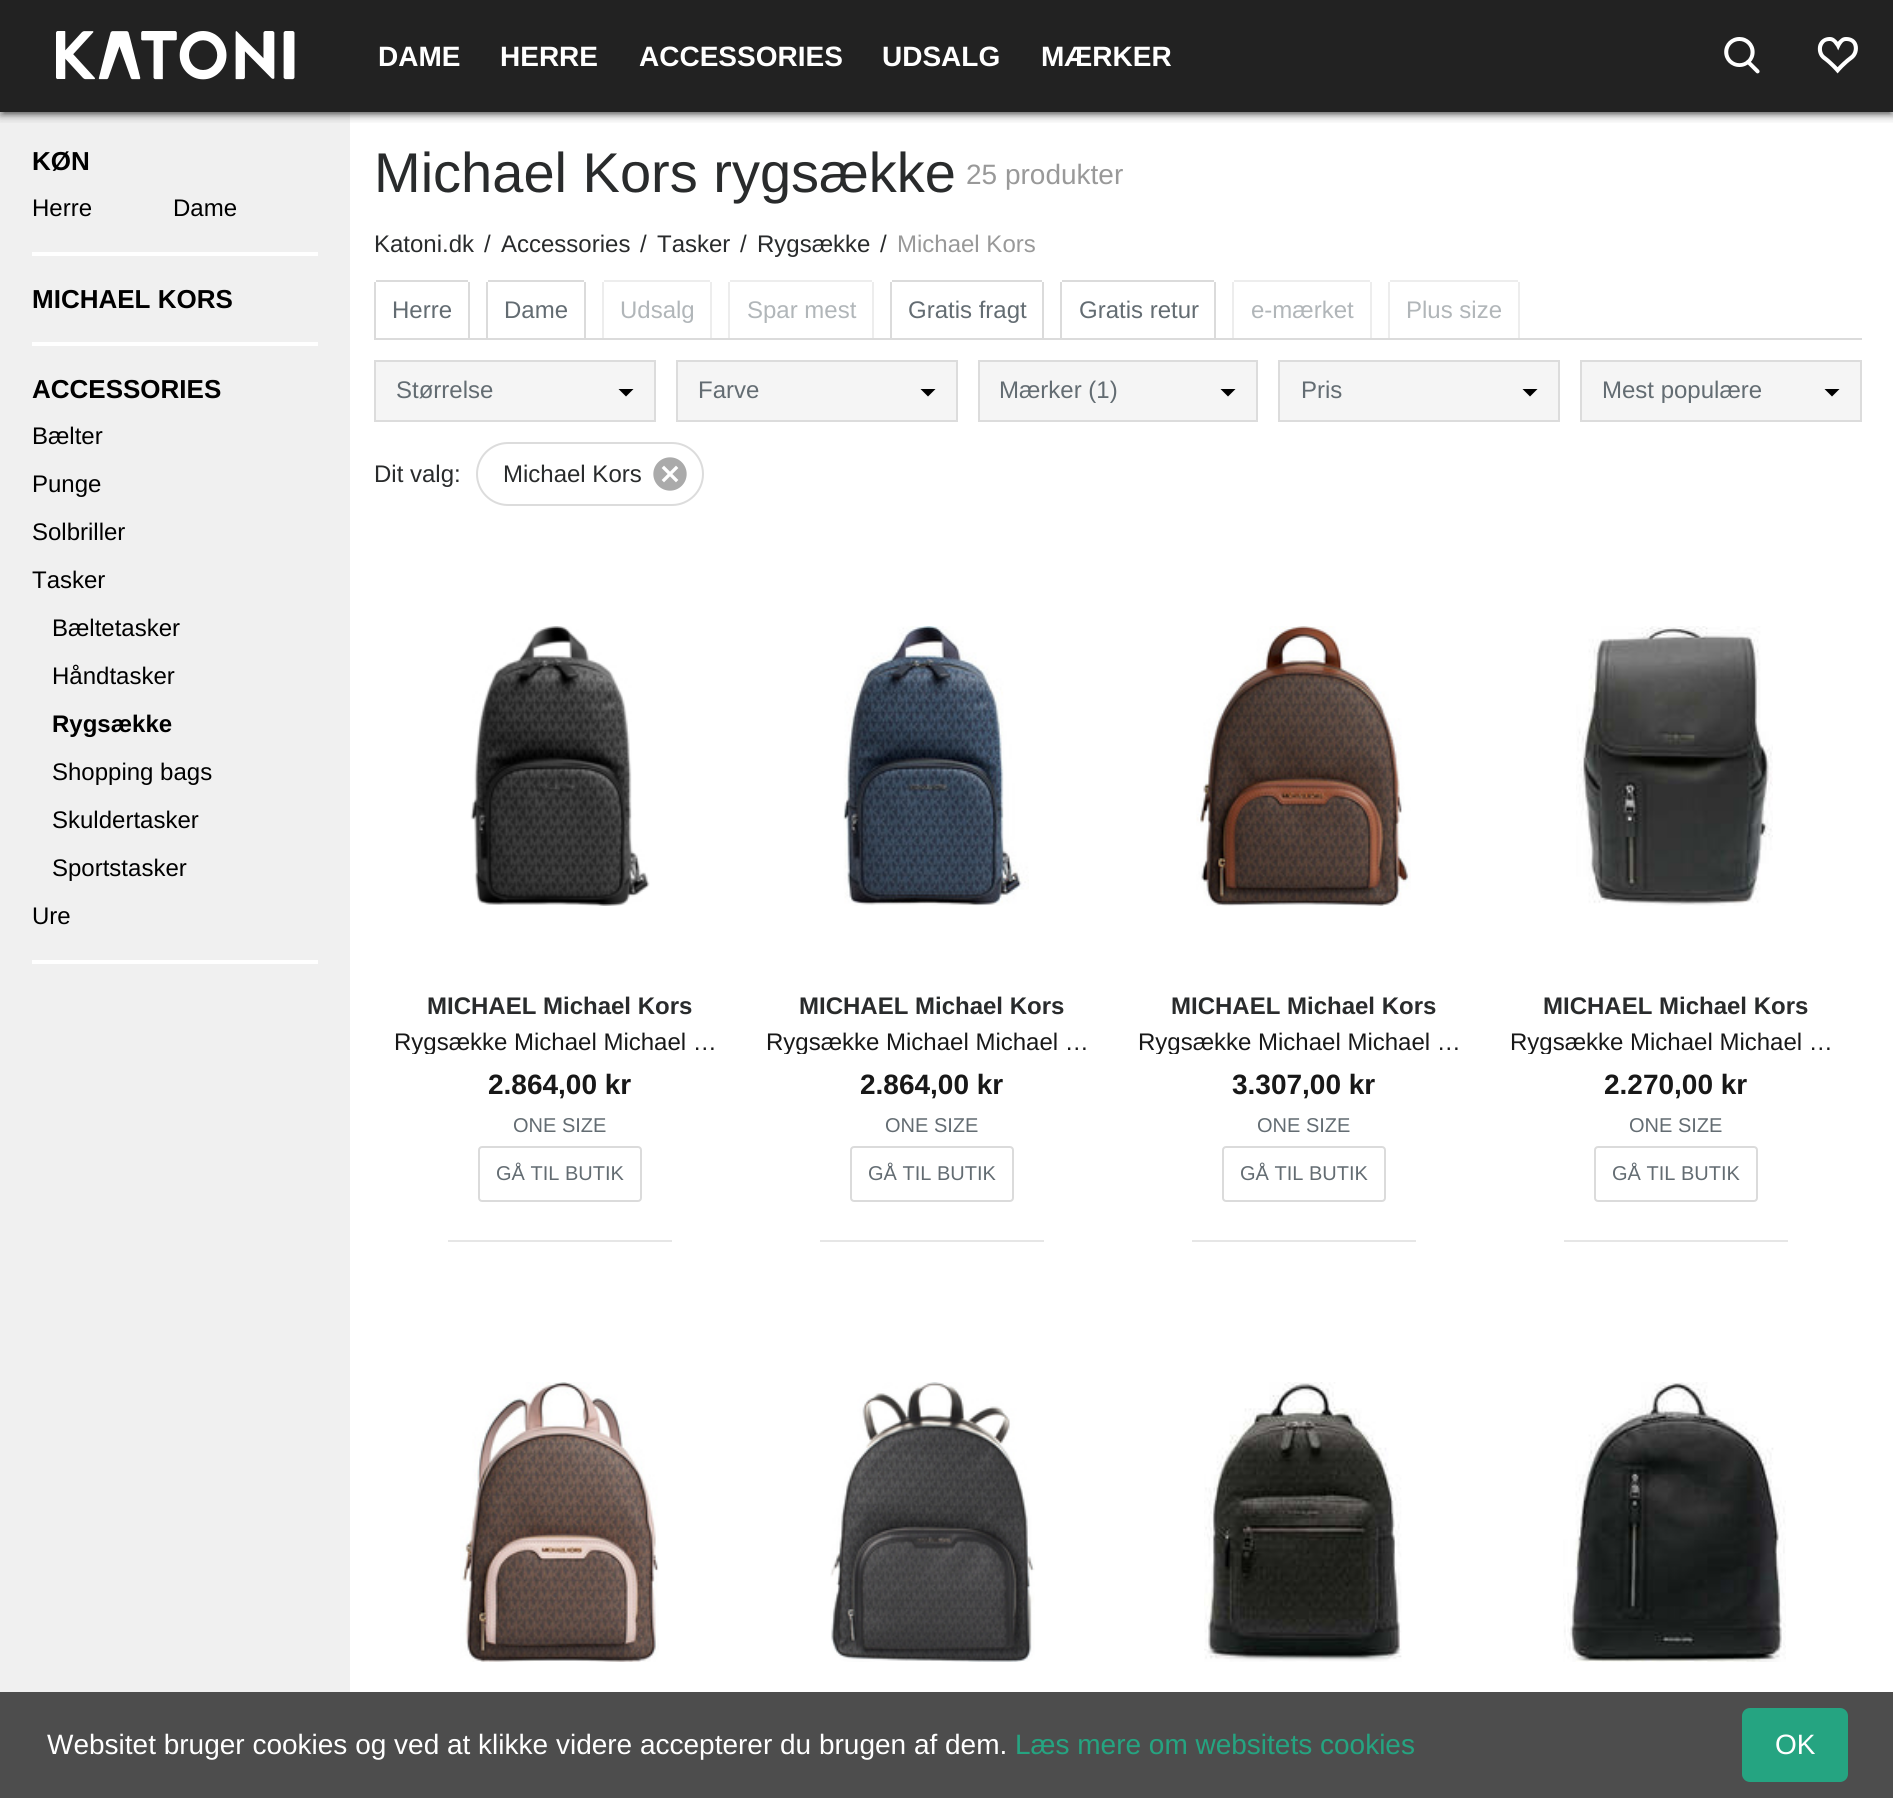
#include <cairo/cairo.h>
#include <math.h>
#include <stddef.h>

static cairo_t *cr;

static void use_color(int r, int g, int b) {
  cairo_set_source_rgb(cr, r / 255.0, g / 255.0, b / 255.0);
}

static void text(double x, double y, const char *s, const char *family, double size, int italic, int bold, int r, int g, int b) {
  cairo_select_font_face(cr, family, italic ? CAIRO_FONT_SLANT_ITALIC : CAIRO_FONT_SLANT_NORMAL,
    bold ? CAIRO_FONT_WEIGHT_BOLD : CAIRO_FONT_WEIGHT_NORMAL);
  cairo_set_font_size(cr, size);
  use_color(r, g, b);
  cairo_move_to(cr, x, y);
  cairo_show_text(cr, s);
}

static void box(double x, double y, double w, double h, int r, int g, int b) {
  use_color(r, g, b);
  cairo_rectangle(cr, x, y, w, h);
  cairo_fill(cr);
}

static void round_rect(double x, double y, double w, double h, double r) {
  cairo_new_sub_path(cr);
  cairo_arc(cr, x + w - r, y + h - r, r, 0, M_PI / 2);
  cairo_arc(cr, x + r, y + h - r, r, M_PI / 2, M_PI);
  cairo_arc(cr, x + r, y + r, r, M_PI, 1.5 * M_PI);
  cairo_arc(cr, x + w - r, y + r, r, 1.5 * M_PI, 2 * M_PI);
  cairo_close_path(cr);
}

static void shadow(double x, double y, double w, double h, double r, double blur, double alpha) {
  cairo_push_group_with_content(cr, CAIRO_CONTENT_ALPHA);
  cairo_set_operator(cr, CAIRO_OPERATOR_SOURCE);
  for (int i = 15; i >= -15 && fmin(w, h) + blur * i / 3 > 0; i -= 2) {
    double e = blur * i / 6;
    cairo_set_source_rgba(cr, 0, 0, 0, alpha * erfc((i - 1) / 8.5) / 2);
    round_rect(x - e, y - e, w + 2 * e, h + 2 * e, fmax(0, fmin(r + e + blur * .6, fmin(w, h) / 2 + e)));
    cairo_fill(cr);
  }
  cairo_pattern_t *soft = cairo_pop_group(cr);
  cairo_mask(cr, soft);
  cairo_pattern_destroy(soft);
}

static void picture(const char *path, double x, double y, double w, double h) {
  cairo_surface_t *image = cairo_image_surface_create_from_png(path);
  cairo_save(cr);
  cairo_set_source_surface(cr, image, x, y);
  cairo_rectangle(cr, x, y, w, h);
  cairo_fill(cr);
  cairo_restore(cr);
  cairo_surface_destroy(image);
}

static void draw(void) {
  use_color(255, 255, 255);
  cairo_paint(cr);
  box(0, 112, 350, 1580, 240, 240, 240);
  use_color(0, 0, 0);
  shadow(0, 2, 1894, 112, 0, 5, 0.12);
  shadow(4, 10, 1886, 104, 0, 1, 0.2);
  shadow(0, 4, 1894, 112, 0, 2, 0.14);
  box(0, 0, 1893, 112, 34, 34, 34);
  picture("img_01.png", 56, 31, 239, 49);
  cairo_save(cr);
  cairo_rectangle(cr, 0, 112, 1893, 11);
  cairo_clip(cr);
  use_color(0, 0, 0);
  shadow(0, 4, 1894, 112, 0, 5, 0.25);
  cairo_restore(cr);
  picture("img_02.png", 1724, 37, 36, 37);
  picture("img_03.png", 1817, 37, 41, 37);
  box(32, 252, 286, 4, 255, 255, 255);
  box(32, 342, 286, 4, 255, 255, 255);
  box(32, 960, 286, 4, 255, 255, 255);
  box(374, 338, 1488, 2, 219, 219, 219);
  box(376, 280, 92, 2, 219, 219, 219);
  box(468, 282, 2, 56, 219, 219, 219);
  box(374, 282, 2, 56, 219, 219, 219);
  box(488, 280, 96, 2, 219, 219, 219);
  box(584, 282, 2, 56, 219, 219, 219);
  box(486, 282, 2, 56, 219, 219, 219);
  box(604, 280, 106, 2, 237, 237, 237);
  box(710, 282, 2, 56, 237, 237, 237);
  box(602, 282, 2, 56, 237, 237, 237);
  box(730, 280, 142, 2, 237, 237, 237);
  box(872, 282, 2, 56, 237, 237, 237);
  box(728, 282, 2, 56, 237, 237, 237);
  box(892, 280, 150, 2, 219, 219, 219);
  box(1042, 282, 2, 56, 219, 219, 219);
  box(890, 282, 2, 56, 219, 219, 219);
  box(1062, 280, 152, 2, 219, 219, 219);
  box(1214, 282, 2, 56, 219, 219, 219);
  box(1060, 282, 2, 56, 219, 219, 219);
  box(1234, 280, 136, 2, 237, 237, 237);
  box(1370, 282, 2, 56, 237, 237, 237);
  box(1232, 282, 2, 56, 237, 237, 237);
  box(1390, 280, 128, 2, 237, 237, 237);
  box(1518, 282, 2, 56, 237, 237, 237);
  box(1388, 282, 2, 56, 237, 237, 237);
  box(376, 362, 278, 58, 245, 245, 245);
  use_color(0, 0, 0);
  cairo_new_path(cr);
  cairo_move_to(cr, 618.5, 389);
  cairo_line_to(cr, 626, 396.5);
  cairo_line_to(cr, 633.5, 389);
  cairo_close_path(cr);
  cairo_fill(cr);
  cairo_rectangle(cr, 375, 361, 280, 60);
  use_color(220, 220, 220);
  cairo_stroke(cr);
  box(678, 362, 278, 58, 245, 245, 245);
  use_color(0, 0, 0);
  cairo_new_path(cr);
  cairo_move_to(cr, 920.5, 389);
  cairo_line_to(cr, 928, 396.5);
  cairo_line_to(cr, 935.5, 389);
  cairo_close_path(cr);
  cairo_fill(cr);
  cairo_rectangle(cr, 677, 361, 280, 60);
  use_color(220, 220, 220);
  cairo_stroke(cr);
  box(980, 362, 276, 58, 245, 245, 245);
  use_color(0, 0, 0);
  cairo_new_path(cr);
  cairo_move_to(cr, 1220.5, 389);
  cairo_line_to(cr, 1228, 396.5);
  cairo_line_to(cr, 1235.5, 389);
  cairo_close_path(cr);
  cairo_fill(cr);
  cairo_rectangle(cr, 979, 361, 278, 60);
  use_color(220, 220, 220);
  cairo_stroke(cr);
  box(1280, 362, 278, 58, 245, 245, 245);
  use_color(0, 0, 0);
  cairo_new_path(cr);
  cairo_move_to(cr, 1522.5, 389);
  cairo_line_to(cr, 1530, 396.5);
  cairo_line_to(cr, 1537.5, 389);
  cairo_close_path(cr);
  cairo_fill(cr);
  cairo_rectangle(cr, 1279, 361, 280, 60);
  use_color(220, 220, 220);
  cairo_stroke(cr);
  box(1582, 362, 278, 58, 245, 245, 245);
  use_color(0, 0, 0);
  cairo_new_path(cr);
  cairo_move_to(cr, 1824.5, 389);
  cairo_line_to(cr, 1832, 396.5);
  cairo_line_to(cr, 1839.5, 389);
  cairo_close_path(cr);
  cairo_fill(cr);
  cairo_rectangle(cr, 1581, 361, 280, 60);
  use_color(220, 220, 220);
  cairo_stroke(cr);
  round_rect(477, 443, 226, 62, 31);
  cairo_stroke(cr);
  picture("img_04.png", 653, 457, 34, 34);
  picture("img_05.png", 470, 626, 180, 280);
  round_rect(479, 1147, 162, 54, 3);
  use_color(219, 219, 219);
  cairo_stroke(cr);
  box(448, 1240, 224, 2, 230, 230, 230);
  picture("img_06.png", 843, 626, 186, 280);
  round_rect(851, 1147, 162, 54, 3);
  use_color(219, 219, 219);
  cairo_stroke(cr);
  box(820, 1240, 224, 2, 230, 230, 230);
  picture("img_07.png", 1196, 626, 215, 280);
  round_rect(1223, 1147, 162, 54, 3);
  use_color(219, 219, 219);
  cairo_stroke(cr);
  box(1192, 1240, 224, 2, 230, 230, 230);
  picture("img_08.png", 1576, 626, 197, 280);
  round_rect(1595, 1147, 162, 54, 3);
  use_color(219, 219, 219);
  cairo_stroke(cr);
  box(1564, 1240, 224, 2, 230, 230, 230);
  picture("img_09.png", 460, 1382, 199, 280);
  picture("img_10.png", 830, 1382, 205, 280);
  picture("img_11.png", 1204, 1382, 198, 280);
  picture("img_12.png", 1563, 1382, 223, 280);
  box(0, 1692, 1893, 106, 77, 77, 77);
  use_color(37, 164, 129);
  round_rect(1742, 1708, 106, 74, 8);
  cairo_fill(cr);
  text(378, 66, "DAME", "Liberation Sans", 28, 0, 1, 255, 255, 255);
  text(500, 66, "HERRE", "Liberation Sans", 28, 0, 1, 255, 255, 255);
  text(639, 66, "ACCESSORIES", "Liberation Sans", 28, 0, 1, 255, 255, 255);
  text(882, 66, "UDSALG", "Liberation Sans", 28, 0, 1, 255, 255, 255);
  text(1041, 66, "MÆRKER", "Liberation Sans", 28, 0, 1, 255, 255, 255);
  text(32, 170, "KØN", "Liberation Sans", 26, 0, 1, 0, 0, 0);
  text(32, 216, "Herre", "Liberation Sans", 24, 0, 0, 0, 0, 0);
  text(173, 216, "Dame", "Liberation Sans", 24, 0, 0, 0, 0, 0);
  text(32, 308, "MICHAEL KORS", "Liberation Sans", 26, 0, 1, 0, 0, 0);
  text(32, 398, "ACCESSORIES", "Liberation Sans", 26, 0, 1, 0, 0, 0);
  text(32, 444, "Bælter", "Liberation Sans", 24, 0, 0, 0, 0, 0);
  text(32, 492, "Punge", "Liberation Sans", 24, 0, 0, 0, 0, 0);
  text(32, 540, "Solbriller", "Liberation Sans", 24, 0, 0, 0, 0, 0);
  text(32, 588, "Tasker", "Liberation Sans", 24, 0, 0, 0, 0, 0);
  text(52, 636, "Bæltetasker", "Liberation Sans", 24, 0, 0, 0, 0, 0);
  text(52, 684, "Håndtasker", "Liberation Sans", 24, 0, 0, 0, 0, 0);
  text(52, 732, "Rygsække", "Liberation Sans", 24, 0, 1, 0, 0, 0);
  text(52, 780, "Shopping bags", "Liberation Sans", 24, 0, 0, 0, 0, 0);
  text(52, 828, "Skuldertasker", "Liberation Sans", 24, 0, 0, 0, 0, 0);
  text(52, 876, "Sportstasker", "Liberation Sans", 24, 0, 0, 0, 0, 0);
  text(32, 924, "Ure", "Liberation Sans", 24, 0, 0, 0, 0, 0);
  text(374, 192, "Michael Kors rygsække", "Liberation Sans", 56, 0, 0, 41, 43, 44);
  text(966, 184, "25 produkter", "Liberation Sans", 28, 0, 0, 153, 153, 153);
  text(374, 252, "Katoni.dk", "Liberation Sans", 24, 0, 0, 41, 43, 44);
  text(484, 252, "/", "Liberation Sans", 24, 0, 0, 41, 43, 44);
  text(501, 252, "Accessories", "Liberation Sans", 24, 0, 0, 41, 43, 44);
  text(640, 252, "/", "Liberation Sans", 24, 0, 0, 41, 43, 44);
  text(657, 252, "Tasker", "Liberation Sans", 24, 0, 0, 41, 43, 44);
  text(740, 252, "/", "Liberation Sans", 24, 0, 0, 41, 43, 44);
  text(757, 252, "Rygsække", "Liberation Sans", 24, 0, 0, 41, 43, 44);
  text(880, 252, "/", "Liberation Sans", 24, 0, 0, 41, 43, 44);
  text(897, 252, "Michael Kors", "Liberation Sans", 24, 0, 0, 153, 153, 153);
  text(392, 318, "Herre", "Liberation Sans", 24, 0, 0, 99, 108, 114);
  text(504, 318, "Dame", "Liberation Sans", 24, 0, 0, 99, 108, 114);
  text(620, 318, "Udsalg", "Liberation Sans", 24, 0, 0, 177, 182, 185);
  text(747, 318, "Spar mest", "Liberation Sans", 24, 0, 0, 177, 182, 185);
  text(908, 318, "Gratis fragt", "Liberation Sans", 24, 0, 0, 99, 108, 114);
  text(1079, 318, "Gratis retur", "Liberation Sans", 24, 0, 0, 99, 108, 114);
  text(1251, 318, "e-mærket", "Liberation Sans", 24, 0, 0, 177, 182, 185);
  text(1406, 318, "Plus size", "Liberation Sans", 24, 0, 0, 177, 182, 185);
  text(396, 398, "Størrelse", "Liberation Sans", 24, 0, 0, 99, 108, 114);
  text(698, 398, "Farve", "Liberation Sans", 24, 0, 0, 99, 108, 114);
  text(999, 398, "Mærker (1)", "Liberation Sans", 24, 0, 0, 99, 108, 114);
  text(1301, 398, "Pris", "Liberation Sans", 24, 0, 0, 99, 108, 114);
  text(1602, 398, "Mest populære", "Liberation Sans", 24, 0, 0, 99, 108, 114);
  text(374, 482, "Dit valg:", "Liberation Sans", 24, 0, 0, 41, 43, 44);
  text(503, 482, "Michael Kors", "Liberation Sans", 24, 0, 0, 41, 43, 44);
  text(427, 1014, "MICHAEL Michael Kors", "Liberation Sans", 24, 0, 1, 41, 43, 44);
  cairo_save(cr);
  cairo_rectangle(cr, 394, 1030, 332, 24);
  cairo_clip(cr);
  text(394, 1050, "Rygsække Michael Michael …", "Liberation Sans", 24, 0, 0, 24, 24, 24);
  cairo_restore(cr);
  text(488, 1094, "2.864,00 kr", "Liberation Sans", 28, 0, 1, 24, 24, 24);
  text(513, 1132, "ONE SIZE", "Liberation Sans", 20, 0, 0, 99, 108, 114);
  text(496, 1180, "GÅ TIL BUTIK", "Liberation Sans", 20, 0, 0, 99, 108, 114);
  text(799, 1014, "MICHAEL Michael Kors", "Liberation Sans", 24, 0, 1, 41, 43, 44);
  cairo_save(cr);
  cairo_rectangle(cr, 766, 1030, 332, 24);
  cairo_clip(cr);
  text(766, 1050, "Rygsække Michael Michael …", "Liberation Sans", 24, 0, 0, 24, 24, 24);
  cairo_restore(cr);
  text(860, 1094, "2.864,00 kr", "Liberation Sans", 28, 0, 1, 24, 24, 24);
  text(885, 1132, "ONE SIZE", "Liberation Sans", 20, 0, 0, 99, 108, 114);
  text(868, 1180, "GÅ TIL BUTIK", "Liberation Sans", 20, 0, 0, 99, 108, 114);
  text(1171, 1014, "MICHAEL Michael Kors", "Liberation Sans", 24, 0, 1, 41, 43, 44);
  cairo_save(cr);
  cairo_rectangle(cr, 1138, 1030, 332, 24);
  cairo_clip(cr);
  text(1138, 1050, "Rygsække Michael Michael …", "Liberation Sans", 24, 0, 0, 24, 24, 24);
  cairo_restore(cr);
  text(1232, 1094, "3.307,00 kr", "Liberation Sans", 28, 0, 1, 24, 24, 24);
  text(1257, 1132, "ONE SIZE", "Liberation Sans", 20, 0, 0, 99, 108, 114);
  text(1240, 1180, "GÅ TIL BUTIK", "Liberation Sans", 20, 0, 0, 99, 108, 114);
  text(1543, 1014, "MICHAEL Michael Kors", "Liberation Sans", 24, 0, 1, 41, 43, 44);
  cairo_save(cr);
  cairo_rectangle(cr, 1510, 1030, 332, 24);
  cairo_clip(cr);
  text(1510, 1050, "Rygsække Michael Michael …", "Liberation Sans", 24, 0, 0, 24, 24, 24);
  cairo_restore(cr);
  text(1604, 1094, "2.270,00 kr", "Liberation Sans", 28, 0, 1, 24, 24, 24);
  text(1629, 1132, "ONE SIZE", "Liberation Sans", 20, 0, 0, 99, 108, 114);
  text(1612, 1180, "GÅ TIL BUTIK", "Liberation Sans", 20, 0, 0, 99, 108, 114);
  text(47, 1754, "Websitet bruger cookies og ved at klikke videre accepterer du brugen af dem.", "Liberation Sans", 28, 0, 0, 255, 255, 255);
  text(1015, 1754, "Læs mere om websitets cookies", "Liberation Sans", 28, 0, 0, 37, 164, 129);
  text(1775, 1754, "OK", "Liberation Sans", 28, 0, 0, 255, 255, 255);
}

int main(void) {
  cairo_surface_t *surface = cairo_image_surface_create(CAIRO_FORMAT_RGB24, 1893, 1798);
  cr = cairo_create(surface);
  cairo_font_options_t *options = cairo_font_options_create();
  cairo_font_options_set_hint_metrics(options, CAIRO_HINT_METRICS_OFF);
  cairo_font_options_set_hint_style(options, CAIRO_HINT_STYLE_NONE);
  cairo_set_font_options(cr, options);
  cairo_set_miter_limit(cr, 4);
  draw();
  cairo_surface_write_to_png(surface, "out.png");
  cairo_font_options_destroy(options);
  cairo_destroy(cr);
  cairo_surface_destroy(surface);
  return 0;
}
